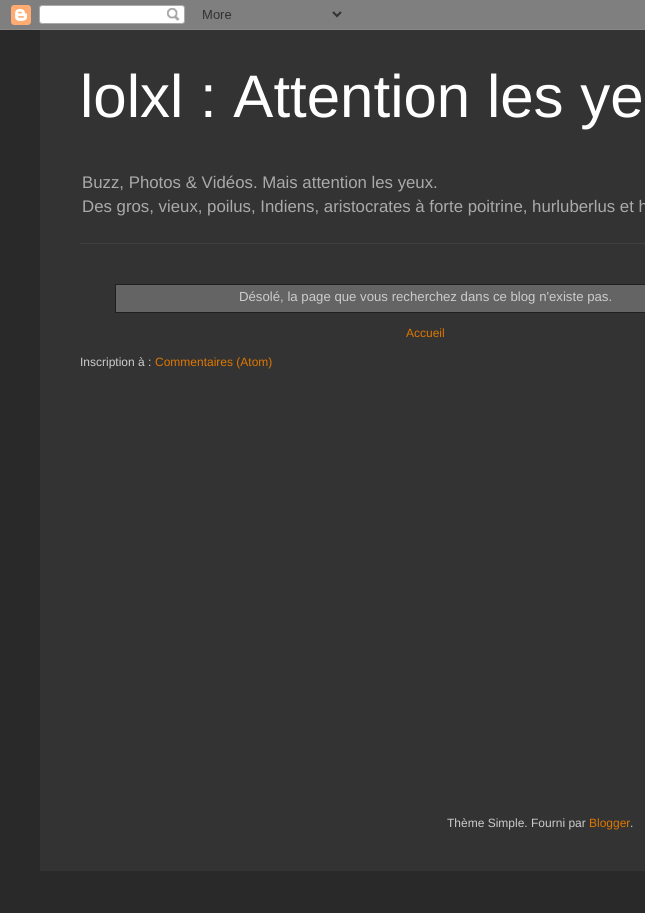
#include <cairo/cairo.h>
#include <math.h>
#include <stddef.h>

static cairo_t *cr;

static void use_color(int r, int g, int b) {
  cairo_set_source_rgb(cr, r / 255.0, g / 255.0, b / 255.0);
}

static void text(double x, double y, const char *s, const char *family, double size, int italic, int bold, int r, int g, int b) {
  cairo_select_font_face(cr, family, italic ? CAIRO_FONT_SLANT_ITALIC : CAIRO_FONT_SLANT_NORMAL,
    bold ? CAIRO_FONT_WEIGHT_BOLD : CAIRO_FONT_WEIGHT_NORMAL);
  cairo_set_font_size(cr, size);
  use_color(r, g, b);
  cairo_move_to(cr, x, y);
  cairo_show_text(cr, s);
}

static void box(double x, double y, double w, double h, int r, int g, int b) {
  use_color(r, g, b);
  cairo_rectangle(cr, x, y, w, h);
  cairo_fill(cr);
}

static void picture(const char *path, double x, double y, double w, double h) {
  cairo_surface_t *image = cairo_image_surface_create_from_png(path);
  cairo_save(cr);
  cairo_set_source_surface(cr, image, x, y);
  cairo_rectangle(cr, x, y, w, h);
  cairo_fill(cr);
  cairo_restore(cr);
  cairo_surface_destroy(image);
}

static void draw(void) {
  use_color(41, 41, 41);
  cairo_paint(cr);
  picture("img_01.png", 0, 0, 645, 30);
  box(40, 30, 605, 841, 51, 51, 51);
  box(80, 243, 565, 1, 64, 64, 64);
  cairo_rectangle(cr, 115.5, 284.5, 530, 28);
  use_color(31, 31, 31);
  cairo_set_line_width(cr, 1);
  cairo_stroke(cr);
  box(116, 285, 529, 27, 100, 100, 100);
  text(80, 117, "lolxl : Attention les ye", "Liberation Sans", 60, 0, 0, 255, 255, 255);
  text(82, 188, "Buzz, Photos & Vidéos. Mais attention les yeux.", "Liberation Sans", 16.8, 0, 0, 170, 170, 170);
  text(82, 212, "Des gros, vieux, poilus, Indiens, aristocrates à forte poitrine, hurluberlus et h", "Liberation Sans", 16.8, 0, 0, 170, 170, 170);
  text(239, 301, "Désolé, la page que vous recherchez dans ce blog n'existe pas.", "Liberation Sans", 13.2, 0, 0, 204, 204, 204);
  text(406, 337, "Accueil", "Liberation Sans", 12, 0, 0, 221, 119, 0);
  text(80, 366, "Inscription à :", "Liberation Sans", 12, 0, 0, 204, 204, 204);
  text(155, 366, "Commentaires (Atom)", "Liberation Sans", 12, 0, 0, 221, 119, 0);
  text(447, 827, "Thème Simple. Fourni par", "Liberation Sans", 12, 0, 0, 204, 204, 204);
  text(589, 827, "Blogger", "Liberation Sans", 12, 0, 0, 221, 119, 0);
  text(630, 827, ".", "Liberation Sans", 12, 0, 0, 204, 204, 204);
}

int main(void) {
  cairo_surface_t *surface = cairo_image_surface_create(CAIRO_FORMAT_RGB24, 645, 913);
  cr = cairo_create(surface);
  cairo_font_options_t *options = cairo_font_options_create();
  cairo_font_options_set_hint_metrics(options, CAIRO_HINT_METRICS_OFF);
  cairo_font_options_set_hint_style(options, CAIRO_HINT_STYLE_NONE);
  cairo_set_font_options(cr, options);
  cairo_set_miter_limit(cr, 4);
  draw();
  cairo_surface_write_to_png(surface, "out.png");
  cairo_font_options_destroy(options);
  cairo_destroy(cr);
  cairo_surface_destroy(surface);
  return 0;
}
